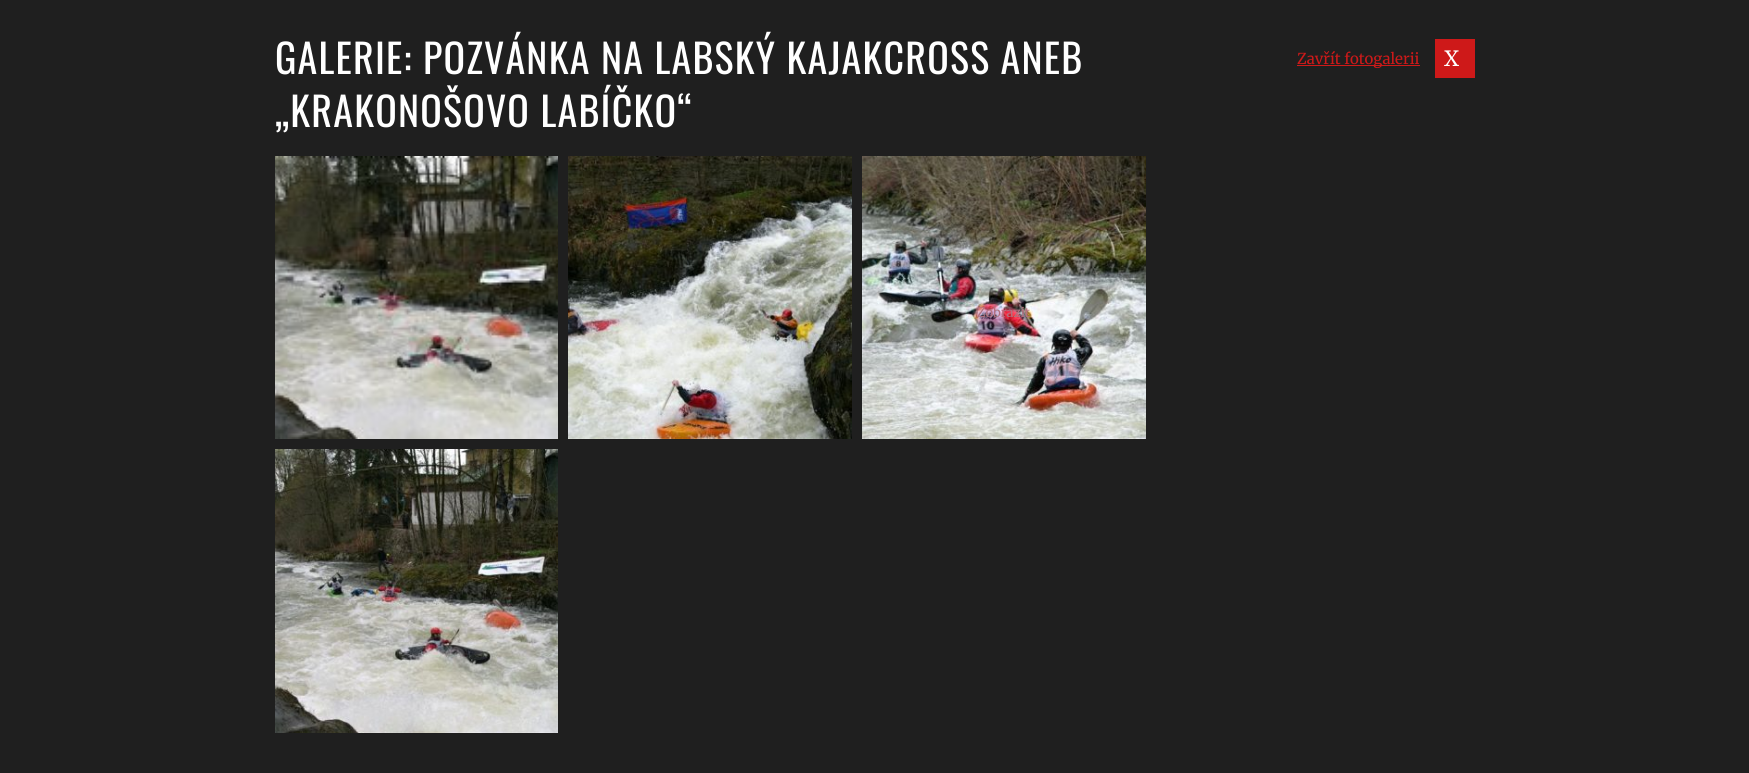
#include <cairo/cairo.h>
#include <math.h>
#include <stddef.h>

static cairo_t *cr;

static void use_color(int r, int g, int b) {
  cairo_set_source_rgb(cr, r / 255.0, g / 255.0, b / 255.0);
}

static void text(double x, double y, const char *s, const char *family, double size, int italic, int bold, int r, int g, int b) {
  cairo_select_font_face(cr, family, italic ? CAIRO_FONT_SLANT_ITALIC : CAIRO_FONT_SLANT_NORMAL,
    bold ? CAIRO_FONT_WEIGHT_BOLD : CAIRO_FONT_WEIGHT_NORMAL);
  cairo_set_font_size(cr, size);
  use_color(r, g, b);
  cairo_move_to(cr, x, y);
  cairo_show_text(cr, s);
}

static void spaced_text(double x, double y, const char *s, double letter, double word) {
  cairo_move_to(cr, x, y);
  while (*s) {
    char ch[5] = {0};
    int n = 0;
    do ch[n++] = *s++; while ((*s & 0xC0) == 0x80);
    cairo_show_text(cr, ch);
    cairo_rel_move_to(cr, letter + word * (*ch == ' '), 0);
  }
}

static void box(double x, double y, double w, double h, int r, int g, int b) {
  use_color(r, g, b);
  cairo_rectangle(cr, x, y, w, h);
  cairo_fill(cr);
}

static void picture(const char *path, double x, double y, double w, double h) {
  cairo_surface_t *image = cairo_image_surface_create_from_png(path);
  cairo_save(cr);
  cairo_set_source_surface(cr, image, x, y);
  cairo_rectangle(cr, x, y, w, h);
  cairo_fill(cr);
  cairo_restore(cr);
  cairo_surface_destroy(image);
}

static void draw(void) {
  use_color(31, 31, 31);
  cairo_paint(cr);
  box(1297, 65, 123, 1, 206, 25, 25);
  box(1435, 39, 40, 39, 206, 25, 25);
  picture("img_01.png", 275, 156, 283, 283);
  picture("img_02.png", 568, 156, 284, 283);
  picture("img_03.png", 862, 156, 284, 283);
  picture("img_04.png", 275, 449, 283, 284);
  cairo_select_font_face(cr, "Oswald", CAIRO_FONT_SLANT_NORMAL, CAIRO_FONT_WEIGHT_NORMAL);
  cairo_set_font_size(cr, 40);
  use_color(255, 255, 255);
  spaced_text(275, 74, "GALERIE: POZVÁNKA NA LABSKÝ KAJAKCROSS ANEB", 1.2, 0);
  spaced_text(275, 127, "„KRAKONOŠOVO LABÍČKO“", 1.2, 0);
  text(1297, 64, "Zavřít fotogalerii", "Merriweather", 15, 0, 0, 206, 25, 25);
  cairo_set_font_size(cr, 21);
  use_color(255, 255, 255);
  spaced_text(1444, 66, "X", 6, 0);
  text(977, 317, "Zobrazit", "Merriweather", 13, 0, 0, 179, 113, 128);
}

int main(void) {
  cairo_surface_t *surface = cairo_image_surface_create(CAIRO_FORMAT_RGB24, 1749, 773);
  cr = cairo_create(surface);
  cairo_font_options_t *options = cairo_font_options_create();
  cairo_font_options_set_hint_metrics(options, CAIRO_HINT_METRICS_OFF);
  cairo_font_options_set_hint_style(options, CAIRO_HINT_STYLE_NONE);
  cairo_set_font_options(cr, options);
  cairo_set_miter_limit(cr, 4);
  draw();
  cairo_surface_write_to_png(surface, "out.png");
  cairo_font_options_destroy(options);
  cairo_destroy(cr);
  cairo_surface_destroy(surface);
  return 0;
}
